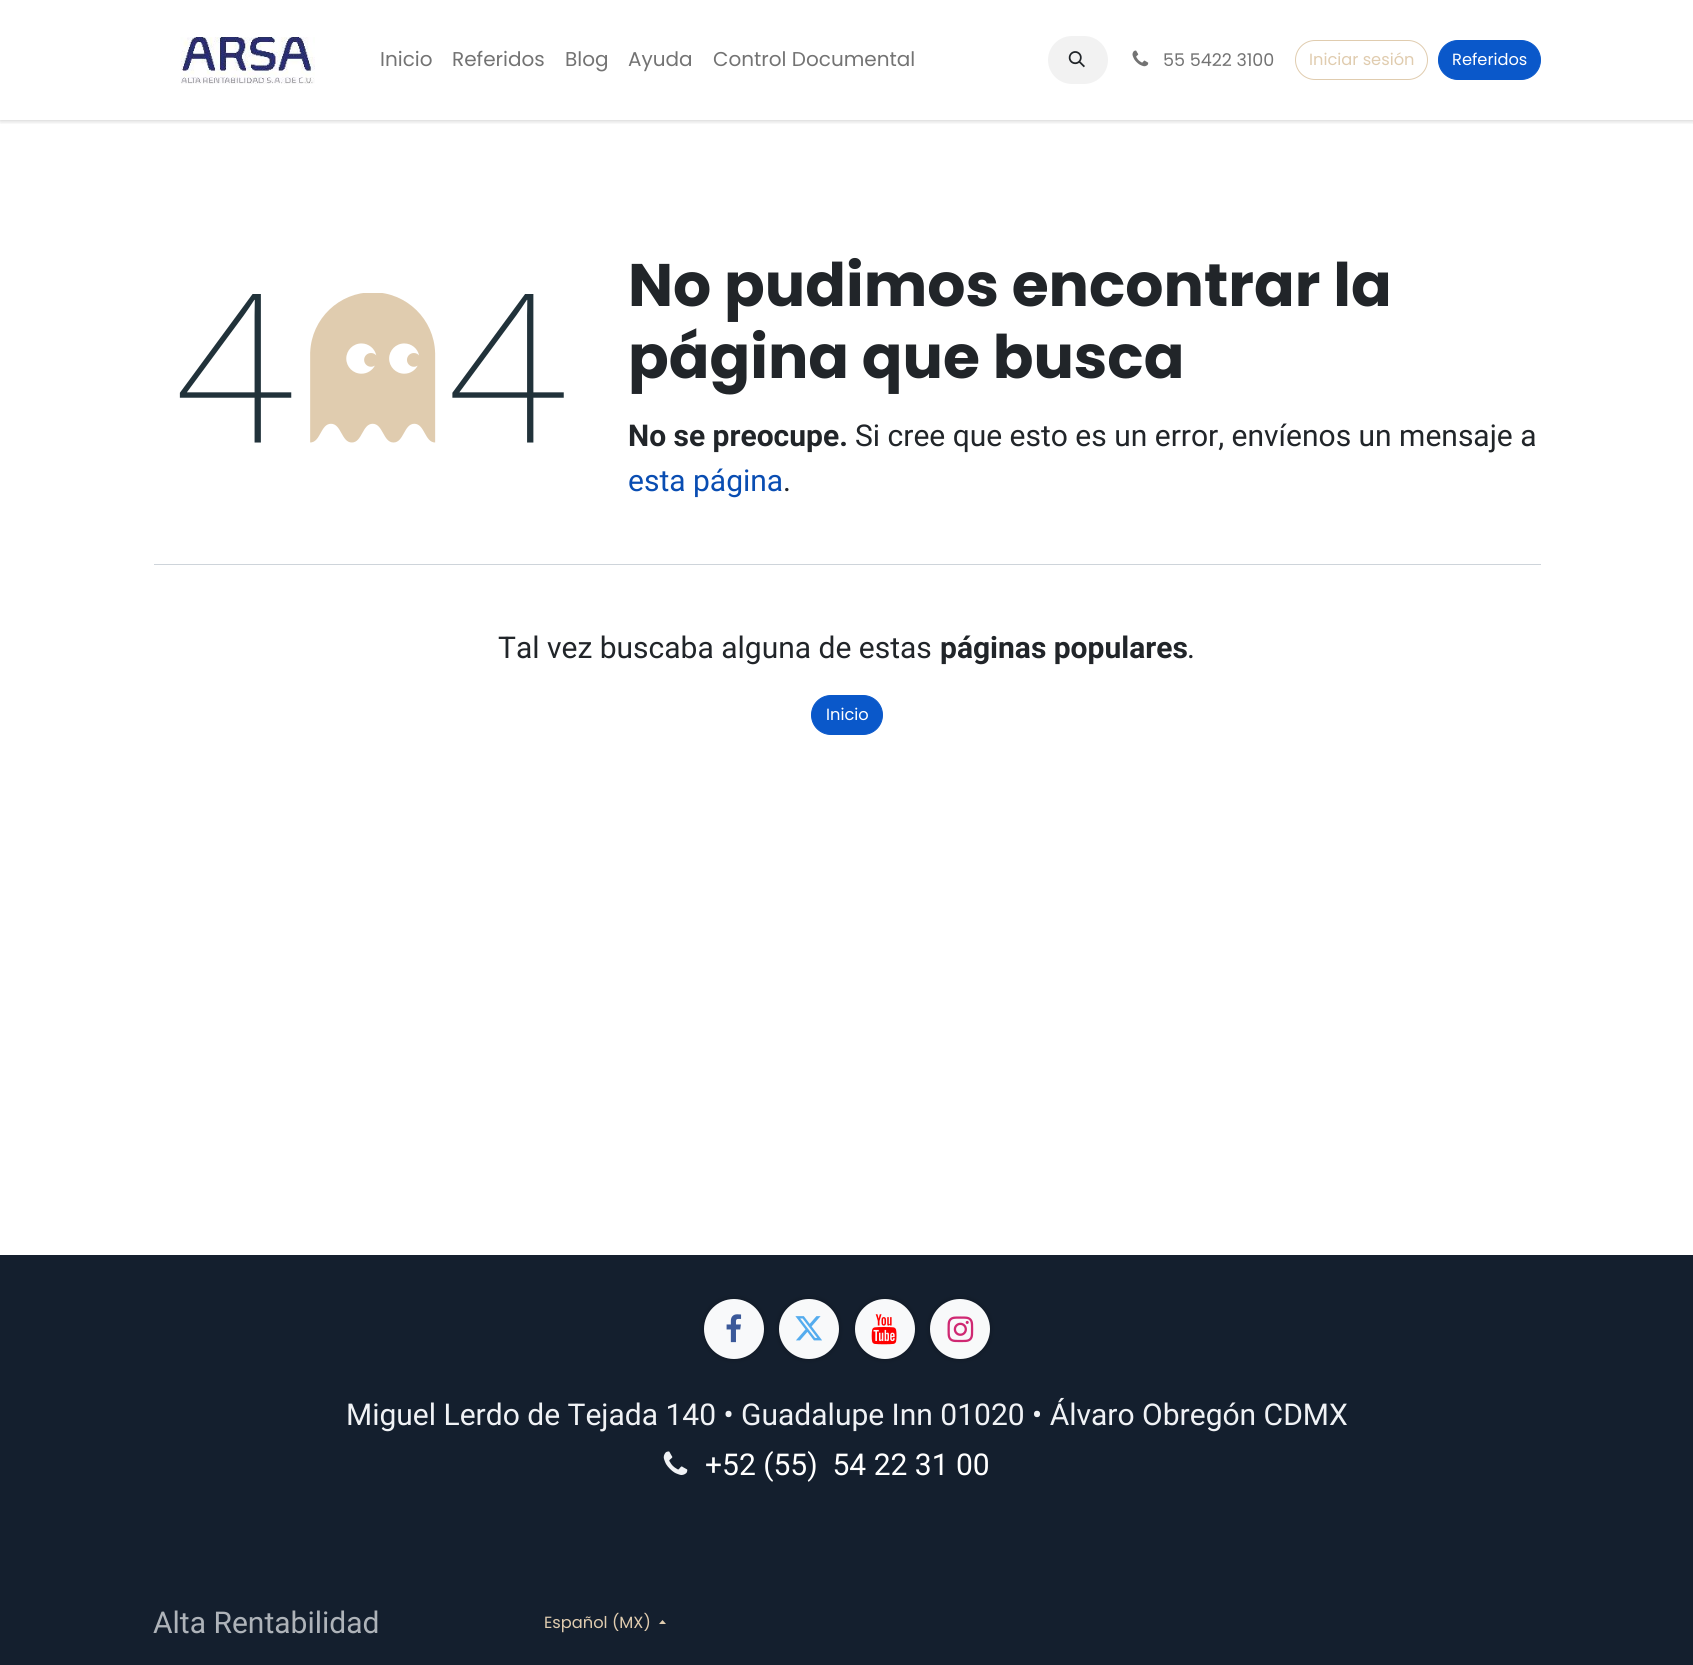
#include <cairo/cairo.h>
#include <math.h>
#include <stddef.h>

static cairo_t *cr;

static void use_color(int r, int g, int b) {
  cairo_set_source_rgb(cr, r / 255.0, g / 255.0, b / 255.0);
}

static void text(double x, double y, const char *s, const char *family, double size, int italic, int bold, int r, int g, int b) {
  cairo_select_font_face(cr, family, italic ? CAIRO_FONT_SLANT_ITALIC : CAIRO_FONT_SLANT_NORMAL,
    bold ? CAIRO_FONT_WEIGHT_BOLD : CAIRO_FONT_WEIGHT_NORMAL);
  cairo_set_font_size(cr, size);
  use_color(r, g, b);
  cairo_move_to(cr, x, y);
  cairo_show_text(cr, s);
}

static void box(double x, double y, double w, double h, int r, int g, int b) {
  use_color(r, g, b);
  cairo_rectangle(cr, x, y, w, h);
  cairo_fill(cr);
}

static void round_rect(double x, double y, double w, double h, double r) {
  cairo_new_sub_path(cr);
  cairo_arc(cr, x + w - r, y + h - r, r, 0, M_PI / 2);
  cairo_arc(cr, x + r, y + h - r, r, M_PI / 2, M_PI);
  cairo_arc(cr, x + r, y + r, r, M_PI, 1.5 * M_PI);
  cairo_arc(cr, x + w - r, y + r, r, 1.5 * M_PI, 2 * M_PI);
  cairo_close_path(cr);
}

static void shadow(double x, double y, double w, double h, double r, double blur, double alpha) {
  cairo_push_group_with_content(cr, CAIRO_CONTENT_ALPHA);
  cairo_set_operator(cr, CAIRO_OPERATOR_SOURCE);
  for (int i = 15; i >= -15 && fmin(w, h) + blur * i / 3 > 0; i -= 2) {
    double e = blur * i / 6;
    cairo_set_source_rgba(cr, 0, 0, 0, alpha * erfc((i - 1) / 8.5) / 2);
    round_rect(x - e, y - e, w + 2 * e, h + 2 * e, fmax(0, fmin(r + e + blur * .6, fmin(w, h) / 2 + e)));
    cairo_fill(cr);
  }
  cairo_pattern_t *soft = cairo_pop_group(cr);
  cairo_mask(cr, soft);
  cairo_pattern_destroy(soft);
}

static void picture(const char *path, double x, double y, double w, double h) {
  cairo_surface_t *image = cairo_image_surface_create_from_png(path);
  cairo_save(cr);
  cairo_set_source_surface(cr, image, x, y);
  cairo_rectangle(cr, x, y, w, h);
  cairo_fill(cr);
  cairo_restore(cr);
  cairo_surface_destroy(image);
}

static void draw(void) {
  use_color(255, 255, 255);
  cairo_paint(cr);
  cairo_save(cr);
  cairo_rectangle(cr, 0, 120, 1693, 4);
  cairo_clip(cr);
  use_color(0, 0, 0);
  shadow(0, 0, 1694, 120, 0, 3, 0.25);
  cairo_restore(cr);
  picture("img_01.png", 180, 37, 135, 47);
  use_color(242, 242, 242);
  round_rect(1048, 36, 60, 48, 24);
  cairo_fill(cr);
  picture("img_02.png", 1068, 51, 17, 17);
  picture("img_03.png", 1132, 50, 17, 17);
  round_rect(1295.5, 40.5, 132, 39, 19.5);
  use_color(224, 204, 175);
  cairo_set_line_width(cr, 1);
  cairo_stroke(cr);
  use_color(10, 88, 202);
  round_rect(1438.5, 40.5, 102, 39, 19.5);
  cairo_fill_preserve(cr);
  cairo_stroke(cr);
  picture("img_04.png", 179, 293, 385, 150);
  box(154, 564, 1387, 1, 206, 212, 218);
  use_color(10, 88, 202);
  round_rect(811.5, 695.5, 71, 39, 19.5);
  cairo_fill_preserve(cr);
  cairo_stroke(cr);
  box(0, 1255, 1693, 410, 20, 31, 46);
  use_color(0, 0, 0);
  shadow(704, 1299, 60, 60, 30, 3, 0.25);
  use_color(248, 249, 250);
  cairo_arc(cr, 734, 1329, 30, 0, 2 * M_PI);
  cairo_fill(cr);
  picture("img_05.png", 726, 1314, 16, 29);
  use_color(0, 0, 0);
  shadow(779, 1299, 60, 60, 30, 3, 0.25);
  use_color(248, 249, 250);
  cairo_arc(cr, 809, 1329, 30, 0, 2 * M_PI);
  cairo_fill(cr);
  picture("img_06.png", 795, 1316, 27, 25);
  use_color(0, 0, 0);
  shadow(855, 1299, 60, 60, 30, 3, 0.25);
  use_color(248, 249, 250);
  cairo_arc(cr, 885, 1329, 30, 0, 2 * M_PI);
  cairo_fill(cr);
  picture("img_07.png", 871, 1314, 26, 31);
  use_color(0, 0, 0);
  shadow(930, 1299, 60, 60, 30, 3, 0.25);
  use_color(248, 249, 250);
  cairo_arc(cr, 960, 1329, 30, 0, 2 * M_PI);
  cairo_fill(cr);
  picture("img_08.png", 947, 1316, 27, 27);
  picture("img_09.png", 663, 1451, 25, 24);
  use_color(224, 204, 175);
  cairo_new_path(cr);
  cairo_move_to(cr, 666, 1624);
  cairo_line_to(cr, 659, 1624);
  cairo_line_to(cr, 662.5, 1620);
  cairo_close_path(cr);
  cairo_fill(cr);
  text(380, 66, "Inicio", "Poppins", 20, 0, 0, 115, 115, 115);
  text(452, 66, "Referidos", "Poppins", 20, 0, 0, 115, 115, 115);
  text(565, 66, "Blog", "Poppins", 20, 0, 0, 115, 115, 115);
  text(628, 66, "Ayuda", "Poppins", 20, 0, 0, 115, 115, 115);
  text(713, 66, "Control Documental", "Poppins", 20, 0, 0, 115, 115, 115);
  text(1163, 66, "55 5422 3100", "Poppins", 17.5, 0, 0, 115, 115, 115);
  text(1309, 65, "Iniciar sesión", "Poppins", 16.25, 0, 0, 224, 204, 175);
  text(1452, 65, "Referidos", "Poppins", 16.25, 0, 0, 255, 255, 255);
  text(628, 306, "No pudimos encontrar la", "Poppins", 60, 0, 1, 33, 37, 41);
  text(628, 378, "página que busca", "Poppins", 60, 0, 1, 33, 37, 41);
  text(628, 446, "No se preocupe.", "Roboto", 30, 0, 1, 33, 37, 41);
  text(855, 446, "Si cree que esto es un error, envíenos un mensaje a", "Roboto", 30, 0, 0, 33, 37, 41);
  text(628, 491, "esta página", "Roboto", 30, 0, 0, 9, 77, 178);
  text(783, 491, ".", "Roboto", 30, 0, 0, 33, 37, 41);
  text(498, 658, "Tal vez buscaba alguna de estas", "Roboto", 30, 0, 0, 33, 37, 41);
  text(940, 658, "páginas populares", "Roboto", 30, 0, 1, 33, 37, 41);
  text(1187, 658, ".", "Roboto", 30, 0, 0, 33, 37, 41);
  text(826, 720, "Inicio", "Poppins", 16.25, 0, 0, 255, 255, 255);
  text(346, 1425, "Miguel Lerdo de Tejada 140 • Guadalupe Inn 01020 • Álvaro Obregón CDMX", "Roboto", 30, 0, 0, 240, 242, 245);
  text(705, 1475, "+52 (55)  54 22 31 00", "Roboto", 30, 0, 0, 255, 255, 255);
  text(153, 1633, "Alta Rentabilidad", "Roboto", 30, 0, 0, 174, 179, 185);
  text(544, 1628, "Español (MX)", "Poppins", 16.25, 0, 0, 224, 204, 175);
}

int main(void) {
  cairo_surface_t *surface = cairo_image_surface_create(CAIRO_FORMAT_RGB24, 1693, 1665);
  cr = cairo_create(surface);
  cairo_font_options_t *options = cairo_font_options_create();
  cairo_font_options_set_hint_metrics(options, CAIRO_HINT_METRICS_OFF);
  cairo_font_options_set_hint_style(options, CAIRO_HINT_STYLE_NONE);
  cairo_set_font_options(cr, options);
  cairo_set_miter_limit(cr, 4);
  draw();
  cairo_surface_write_to_png(surface, "out.png");
  cairo_font_options_destroy(options);
  cairo_destroy(cr);
  cairo_surface_destroy(surface);
  return 0;
}
